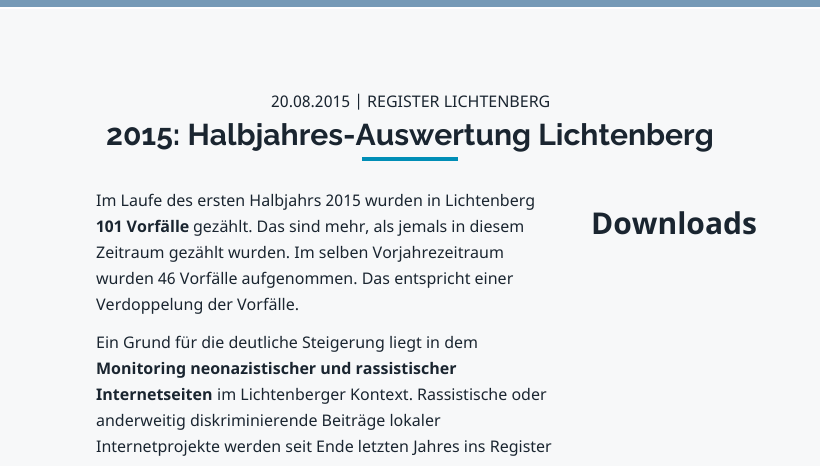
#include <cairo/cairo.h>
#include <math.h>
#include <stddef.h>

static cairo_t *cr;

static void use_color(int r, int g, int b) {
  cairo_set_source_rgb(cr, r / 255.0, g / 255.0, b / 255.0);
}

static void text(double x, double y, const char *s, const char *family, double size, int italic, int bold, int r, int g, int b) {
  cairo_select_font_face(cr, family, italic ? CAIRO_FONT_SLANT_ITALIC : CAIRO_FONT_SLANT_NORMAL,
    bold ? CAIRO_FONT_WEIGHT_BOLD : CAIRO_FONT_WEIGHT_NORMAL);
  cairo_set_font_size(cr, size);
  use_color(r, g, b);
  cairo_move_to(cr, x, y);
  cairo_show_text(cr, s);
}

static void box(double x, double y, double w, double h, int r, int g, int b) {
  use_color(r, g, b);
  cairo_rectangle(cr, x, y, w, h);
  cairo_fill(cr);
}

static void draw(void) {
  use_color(247, 248, 249);
  cairo_paint(cr);
  box(0, 0, 820, 7, 118, 154, 183);
  box(0, 7, 820, 2, 255, 255, 255);
  box(362, 157, 96, 4, 0, 142, 182);
  text(271, 107, "20.08.2015 | REGISTER LICHTENBERG", "Noto Sans", 16, 0, 0, 26, 37, 48);
  text(106, 145, "2015: Halbjahres-Auswertung Lichtenberg", "Raleway", 30, 0, 1, 26, 37, 48);
  text(96, 206, "Im Laufe des ersten Halbjahrs 2015 wurden in Lichtenberg", "Noto Sans", 16, 0, 0, 26, 37, 48);
  text(96, 232, "101 Vorfälle", "Noto Sans", 16, 0, 1, 26, 37, 48);
  text(193, 232, "gezählt. Das sind mehr, als jemals in diesem", "Noto Sans", 16, 0, 0, 26, 37, 48);
  text(96, 258, "Zeitraum gezählt wurden. Im selben Vorjahrezeitraum", "Noto Sans", 16, 0, 0, 26, 37, 48);
  text(96, 284, "wurden 46 Vorfälle aufgenommen. Das entspricht einer", "Noto Sans", 16, 0, 0, 26, 37, 48);
  text(96, 310, "Verdoppelung der Vorfälle.", "Noto Sans", 16, 0, 0, 26, 37, 48);
  text(96, 348, "Ein Grund für die deutliche Steigerung liegt in dem", "Noto Sans", 16, 0, 0, 26, 37, 48);
  text(96, 374, "Monitoring neonazistischer und rassistischer", "Noto Sans", 16, 0, 1, 26, 37, 48);
  text(96, 400, "Internetseiten", "Noto Sans", 16, 0, 1, 26, 37, 48);
  text(217, 400, "im Lichtenberger Kontext. Rassistische oder", "Noto Sans", 16, 0, 0, 26, 37, 48);
  text(96, 426, "anderweitig diskriminierende Beiträge lokaler", "Noto Sans", 16, 0, 0, 26, 37, 48);
  text(96, 452, "Internetprojekte werden seit Ende letzten Jahres ins Register", "Noto Sans", 16, 0, 0, 26, 37, 48);
  text(591, 234, "Downloads", "Noto Sans", 30, 0, 1, 26, 37, 48);
}

int main(void) {
  cairo_surface_t *surface = cairo_image_surface_create(CAIRO_FORMAT_RGB24, 820, 466);
  cr = cairo_create(surface);
  cairo_font_options_t *options = cairo_font_options_create();
  cairo_font_options_set_hint_metrics(options, CAIRO_HINT_METRICS_OFF);
  cairo_font_options_set_hint_style(options, CAIRO_HINT_STYLE_NONE);
  cairo_set_font_options(cr, options);
  cairo_set_miter_limit(cr, 4);
  draw();
  cairo_surface_write_to_png(surface, "out.png");
  cairo_font_options_destroy(options);
  cairo_destroy(cr);
  cairo_surface_destroy(surface);
  return 0;
}
